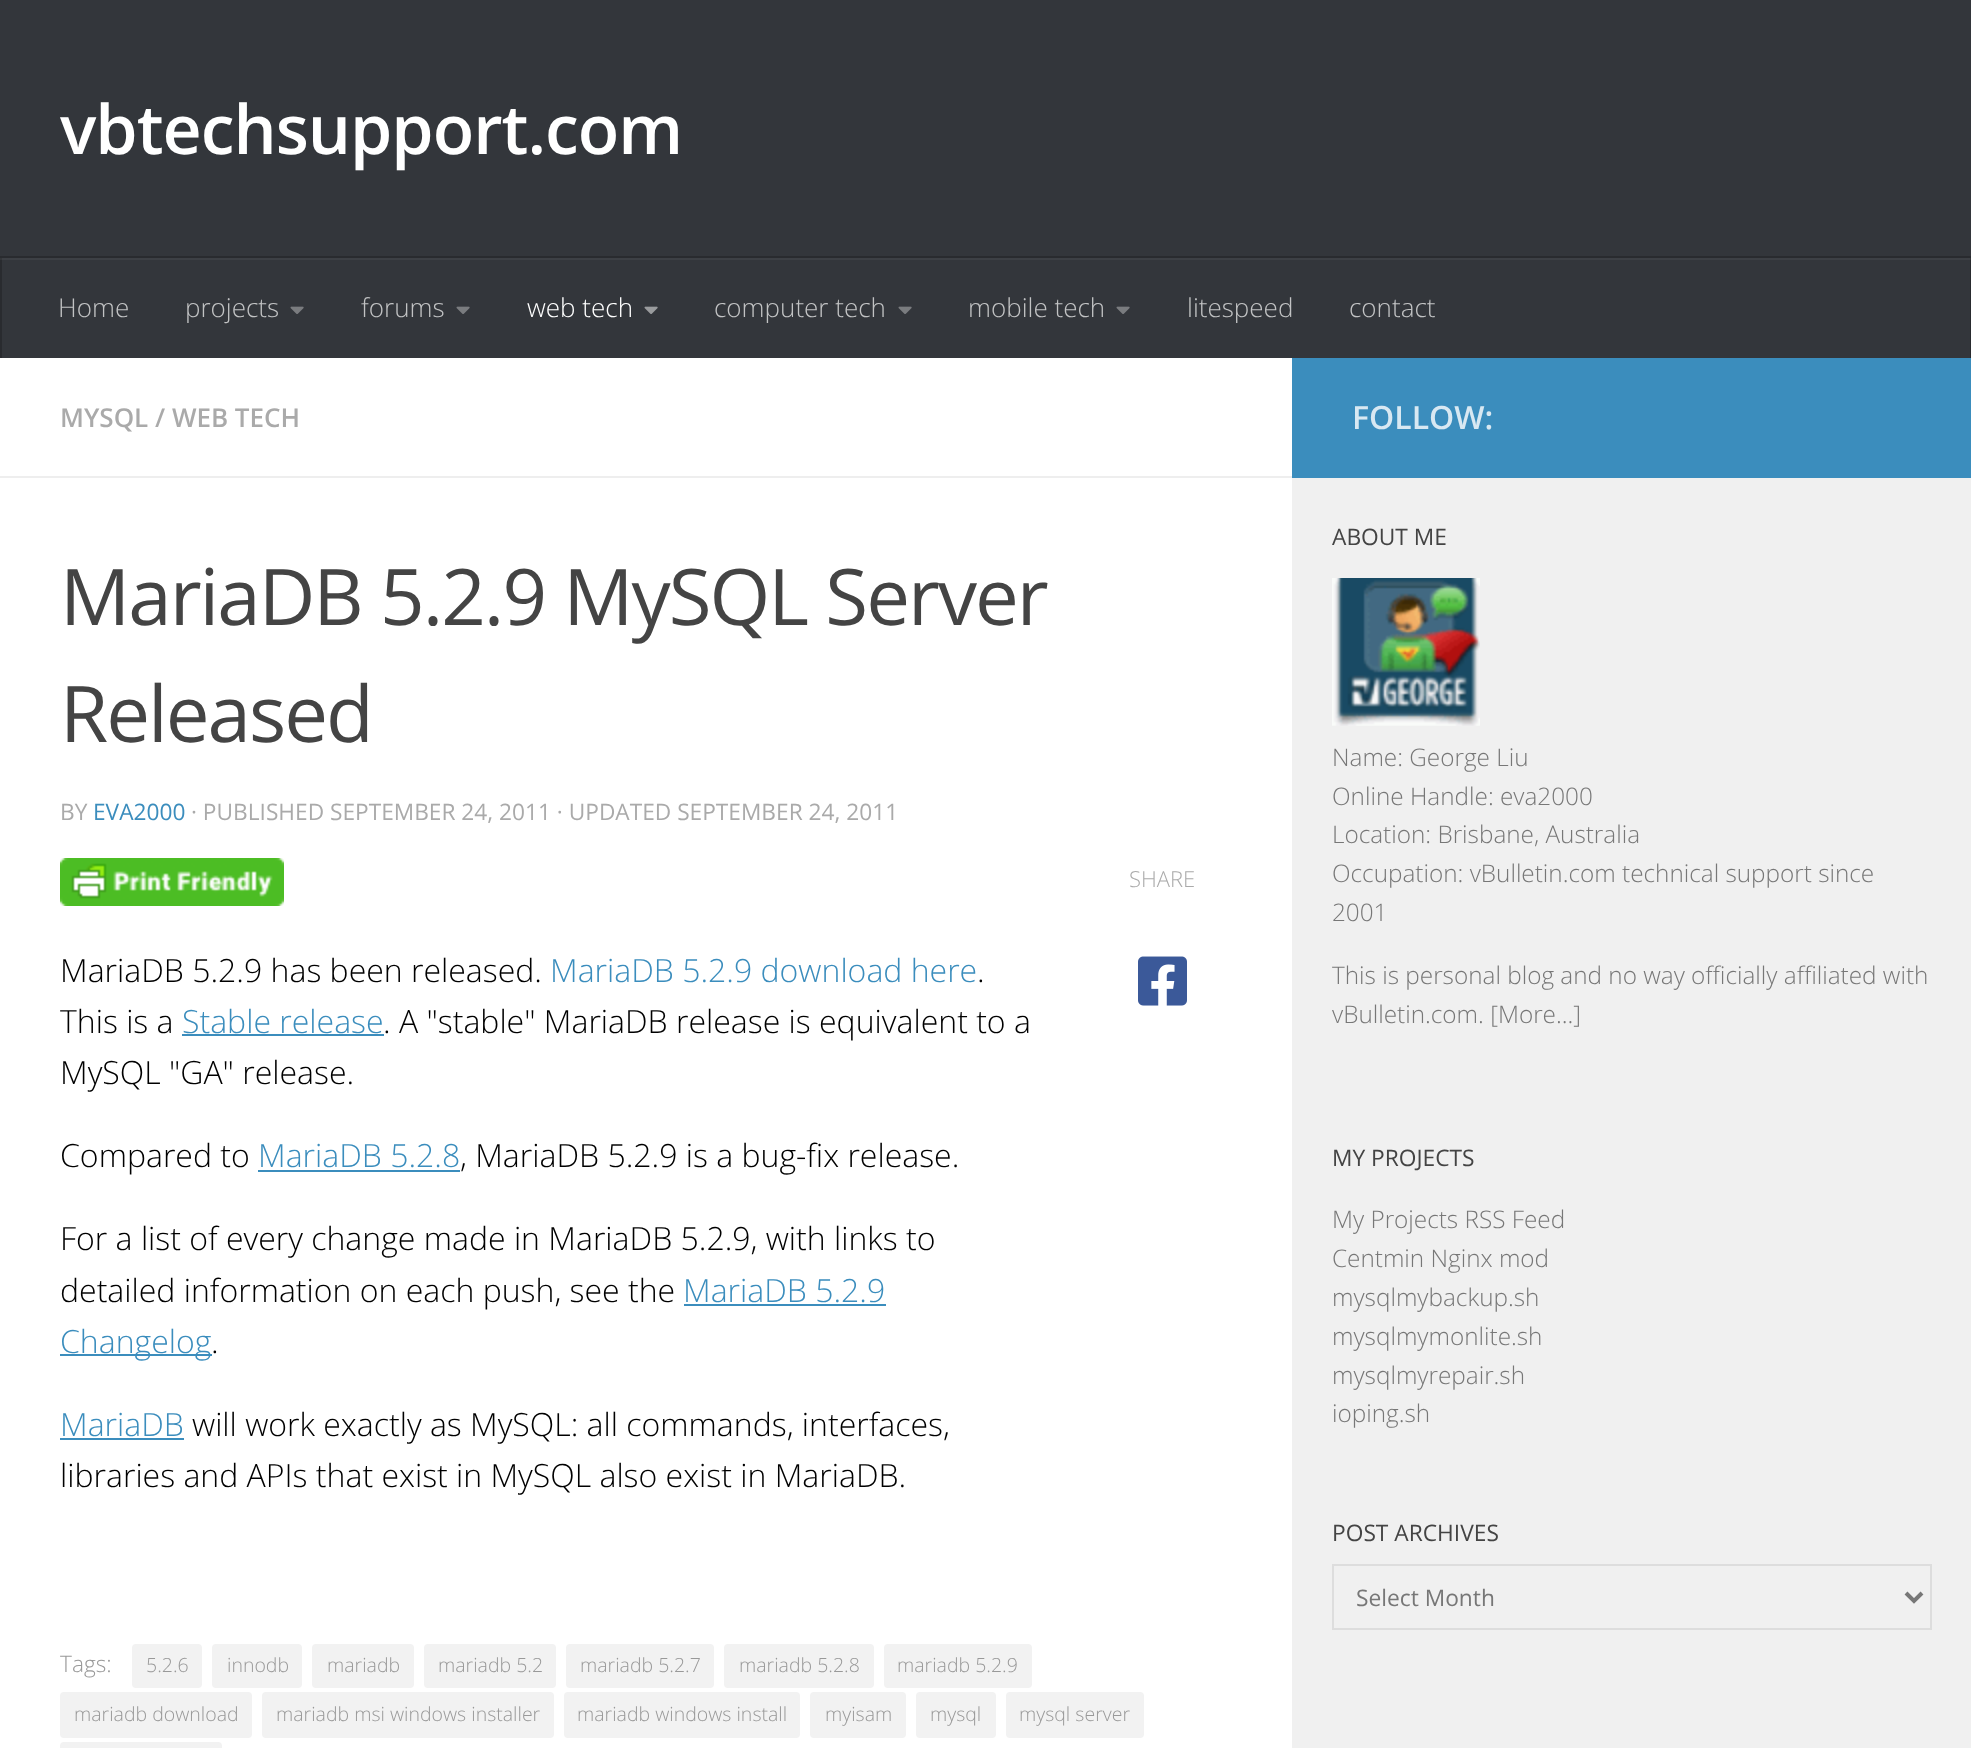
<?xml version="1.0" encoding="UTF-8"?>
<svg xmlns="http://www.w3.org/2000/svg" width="1971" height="1748">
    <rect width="100%" height="100%" fill="#33363B"/>
    <rect x="0" y="258" width="1971" height="2" fill="#3D4045"/>
    <text x="60" y="154" font-family="Open Sans" font-size="68" font-weight="600" letter-spacing="-1" fill="#FFFFFF">vbtechsupport.com</text>
    <rect x="0" y="256" width="1971" height="2" fill="#292B2F"/>
    <rect x="1970" y="258" width="1" height="100" fill="#292B2F"/>
    <rect x="1970" y="258" width="1" height="2" fill="#343639"/>
    <rect x="0" y="258" width="2" height="100" fill="#292B2F"/>
    <rect x="0" y="258" width="2" height="2" fill="#343639"/>
    <text x="58" y="317" font-family="Open Sans" font-size="26" font-weight="300" fill="#C2C3C4">Home</text>
    <text x="185" y="317" font-family="Open Sans" font-size="26" font-weight="300" fill="#C2C3C4">projects</text>
    <image x="290" y="306" width="14" height="8" href="img_01.png"/>
    <text x="361" y="317" font-family="Open Sans" font-size="26" font-weight="300" fill="#C2C3C4">forums</text>
    <image x="456" y="306" width="14" height="8" href="img_01.png"/>
    <text x="527" y="317" font-family="Open Sans" font-size="26" font-weight="300" fill="#FFFFFF">web tech</text>
    <image x="644" y="306" width="14" height="8" href="img_02.png"/>
    <text x="714" y="317" font-family="Open Sans" font-size="26" font-weight="300" fill="#C2C3C4">computer tech</text>
    <image x="898" y="306" width="14" height="8" href="img_01.png"/>
    <text x="968" y="317" font-family="Open Sans" font-size="26" font-weight="300" fill="#C2C3C4">mobile tech</text>
    <image x="1116" y="306" width="14" height="8" href="img_01.png"/>
    <text x="1187" y="317" font-family="Open Sans" font-size="26" font-weight="300" fill="#C2C3C4">litespeed</text>
    <text x="1349" y="317" font-family="Open Sans" font-size="26" font-weight="300" fill="#C2C3C4">contact</text>
    <rect x="0" y="358" width="1292" height="1390" fill="#FFFFFF"/>
    <rect x="0" y="476" width="1292" height="2" fill="#EEEEEE"/>
    <text x="60" y="427" font-family="Open Sans" font-size="26" font-weight="600" fill="#AAAAAA">MYSQL / WEB TECH</text>
    <text font-family="Open Sans" font-size="78.1" letter-spacing="-2" fill="#444444">
        <tspan x="60" y="625">MariaDB 5.2.9 MySQL Server</tspan>
        <tspan x="60" y="742">Released</tspan>
    </text>
    <text x="60" y="820" font-family="Open Sans" font-size="22.7" fill="#AAAAAA">BY</text>
    <text x="93" y="820" font-family="Open Sans" font-size="22.7" fill="#3B8DBD">EVA2000</text>
    <text x="191" y="820" font-family="Open Sans" font-size="22.7" fill="#AAAAAA">· PUBLISHED SEPTEMBER 24, 2011 · UPDATED SEPTEMBER 24, 2011</text>
    <text x="1129" y="887" font-family="Open Sans" font-size="22" font-weight="300" fill="#AAAAAA">SHARE</text>
    <image x="1138" y="956" width="49" height="50" href="img_03.png"/>
    <image x="60" y="858" width="224" height="48" href="img_04.png"/>
    <text x="60" y="982" font-family="Open Sans" font-size="32" font-weight="300" fill="#000000">MariaDB 5.2.9 has been released.</text>
    <text x="550" y="982" font-family="Open Sans" font-size="32" font-weight="300" fill="#3B8DBD">MariaDB 5.2.9 download here</text>
    <text x="977" y="982" font-family="Open Sans" font-size="32" font-weight="300" fill="#000000">.</text>
    <text x="60" y="1033" font-family="Open Sans" font-size="32" font-weight="300" fill="#000000">This is a</text>
    <text x="182" y="1033" font-family="Open Sans" font-size="32" font-weight="300" fill="#3B8DBD">Stable release</text>
    <rect x="182" y="1034" width="202" height="2" fill="#3B8DBD"/>
    <text x="383" y="1033" font-family="Open Sans" font-size="32" font-weight="300" fill="#000000">. A "stable" MariaDB release is equivalent to a</text>
    <text x="60" y="1084" font-family="Open Sans" font-size="32" font-weight="300" fill="#000000">MySQL "GA" release.</text>
    <text x="60" y="1167" font-family="Open Sans" font-size="32" font-weight="300" fill="#000000">Compared to</text>
    <text x="258" y="1167" font-family="Open Sans" font-size="32" font-weight="300" fill="#3B8DBD">MariaDB 5.2.8</text>
    <rect x="258" y="1170" width="202" height="2" fill="#3B8DBD"/>
    <text x="460" y="1167" font-family="Open Sans" font-size="32" font-weight="300" fill="#000000">, MariaDB 5.2.9 is a bug-fix release.</text>
    <text font-family="Open Sans" font-size="32" font-weight="300" fill="#000000">
        <tspan x="60" y="1250">For a list of every change made in MariaDB 5.2.9, with links to</tspan>
        <tspan x="60" y="1302">detailed information on each push, see the</tspan>
    </text>
    <text x="683" y="1302" font-family="Open Sans" font-size="32" font-weight="300" fill="#3B8DBD">MariaDB 5.2.9</text>
    <rect x="684" y="1304" width="202" height="2" fill="#3B8DBD"/>
    <rect x="60" y="1354" width="152" height="2" fill="#3B8DBD"/>
    <text x="60" y="1353" font-family="Open Sans" font-size="32" font-weight="300" fill="#3B8DBD">Changelog</text>
    <text x="211" y="1353" font-family="Open Sans" font-size="32" font-weight="300" fill="#000000">.</text>
    <text x="60" y="1436" font-family="Open Sans" font-size="32" font-weight="300" fill="#3B8DBD">MariaDB</text>
    <rect x="60" y="1438" width="124" height="2" fill="#3B8DBD"/>
    <text x="192" y="1436" font-family="Open Sans" font-size="32" font-weight="300" fill="#000000">will work exactly as MySQL: all commands, interfaces,</text>
    <text x="60" y="1487" font-family="Open Sans" font-size="32" font-weight="300" fill="#000000">libraries and APIs that exist in MySQL also exist in MariaDB.</text>
    <text x="60" y="1672" font-family="Open Sans" font-size="22.7" font-weight="300" fill="#999999">Tags:</text>
    <rect x="132" y="1644" width="70" height="44" rx="4" fill="#F2F2F2"/>
    <text x="146" y="1672" font-family="Open Sans" font-size="19.5" font-weight="300" fill="#999999">5.2.6</text>
    <rect x="212" y="1644" width="90" height="44" rx="4" fill="#F2F2F2"/>
    <text x="227" y="1672" font-family="Open Sans" font-size="19.5" font-weight="300" fill="#999999">innodb</text>
    <rect x="312" y="1644" width="102" height="44" rx="4" fill="#F2F2F2"/>
    <text x="327" y="1672" font-family="Open Sans" font-size="19.5" font-weight="300" fill="#999999">mariadb</text>
    <rect x="424" y="1644" width="132" height="44" rx="4" fill="#F2F2F2"/>
    <text x="438" y="1672" font-family="Open Sans" font-size="19.5" font-weight="300" fill="#999999">mariadb 5.2</text>
    <rect x="566" y="1644" width="148" height="44" rx="4" fill="#F2F2F2"/>
    <text x="580" y="1672" font-family="Open Sans" font-size="19.5" font-weight="300" fill="#999999">mariadb 5.2.7</text>
    <rect x="724" y="1644" width="150" height="44" rx="4" fill="#F2F2F2"/>
    <text x="739" y="1672" font-family="Open Sans" font-size="19.5" font-weight="300" fill="#999999">mariadb 5.2.8</text>
    <rect x="884" y="1644" width="148" height="44" rx="4" fill="#F2F2F2"/>
    <text x="897" y="1672" font-family="Open Sans" font-size="19.5" font-weight="300" fill="#999999">mariadb 5.2.9</text>
    <rect x="60" y="1692" width="192" height="46" rx="4" fill="#F2F2F2"/>
    <text x="74" y="1721" font-family="Open Sans" font-size="19.5" font-weight="300" fill="#999999">mariadb download</text>
    <rect x="262" y="1692" width="292" height="46" rx="4" fill="#F2F2F2"/>
    <text x="276" y="1721" font-family="Open Sans" font-size="19.5" font-weight="300" fill="#999999">mariadb msi windows installer</text>
    <rect x="564" y="1692" width="236" height="46" rx="4" fill="#F2F2F2"/>
    <text x="577" y="1721" font-family="Open Sans" font-size="19.5" font-weight="300" fill="#999999">mariadb windows install</text>
    <rect x="810" y="1692" width="96" height="46" rx="4" fill="#F2F2F2"/>
    <text x="825" y="1721" font-family="Open Sans" font-size="19.5" font-weight="300" fill="#999999">myisam</text>
    <rect x="916" y="1692" width="80" height="46" rx="4" fill="#F2F2F2"/>
    <text x="930" y="1721" font-family="Open Sans" font-size="19.5" font-weight="300" fill="#999999">mysql</text>
    <rect x="1006" y="1692" width="138" height="46" rx="4" fill="#F2F2F2"/>
    <text x="1019" y="1721" font-family="Open Sans" font-size="19.5" font-weight="300" fill="#999999">mysql server</text>
    <rect x="60" y="1742" width="162" height="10" rx="4" fill="#F2F2F2"/>
    <rect x="1292" y="358" width="679" height="120" fill="#3B8DBD"/>
    <text x="1352" y="429" font-family="Open Sans" font-size="32" font-weight="600" fill="#D8E8F2">FOLLOW:</text>
    <rect x="1292" y="478" width="679" height="1270" fill="#F0F0F0"/>
    <text x="1332" y="545" font-family="Open Sans" font-size="22.75" fill="#444444">ABOUT ME</text>
    <image x="1332" y="578" width="148" height="148" href="img_05.png"/>
    <text font-family="Open Sans" font-size="24.3" font-weight="300" fill="#777777">
        <tspan x="1332" y="766">Name: George Liu</tspan>
        <tspan x="1332" y="805">Online Handle: eva2000</tspan>
        <tspan x="1332" y="843">Location: Brisbane, Australia</tspan>
        <tspan x="1332" y="882">Occupation: vBulletin.com technical support since</tspan>
        <tspan x="1332" y="921">2001</tspan>
    </text>
    <text font-family="Open Sans" font-size="24.3" font-weight="300" fill="#777777">
        <tspan x="1332" y="984">This is personal blog and no way officially affiliated with</tspan>
        <tspan x="1332" y="1023">vBulletin.com. [More...]</tspan>
    </text>
    <text x="1332" y="1166" font-family="Open Sans" font-size="22.75" fill="#444444">MY PROJECTS</text>
    <text font-family="Open Sans" font-size="24.3" font-weight="300" fill="#777777">
        <tspan x="1332" y="1228">My Projects RSS Feed</tspan>
        <tspan x="1332" y="1267">Centmin Nginx mod</tspan>
        <tspan x="1332" y="1306">mysqlmybackup.sh</tspan>
        <tspan x="1332" y="1345">mysqlmymonlite.sh</tspan>
        <tspan x="1332" y="1384">mysqlmyrepair.sh</tspan>
        <tspan x="1332" y="1422">ioping.sh</tspan>
    </text>
    <text x="1332" y="1541" font-family="Open Sans" font-size="22.75" fill="#444444">POST ARCHIVES</text>
    <rect x="1333" y="1565" width="598" height="64" fill="none" stroke="#DDDDDD" stroke-width="2"/>
    <path d="M 1906 1593 L 1914 1601 L 1922 1593" fill="none" stroke="#777777" stroke-width="4"/>
    <text x="1356" y="1606" font-family="Open Sans" font-size="22.75" fill="#777777">Select Month</text>
</svg>
